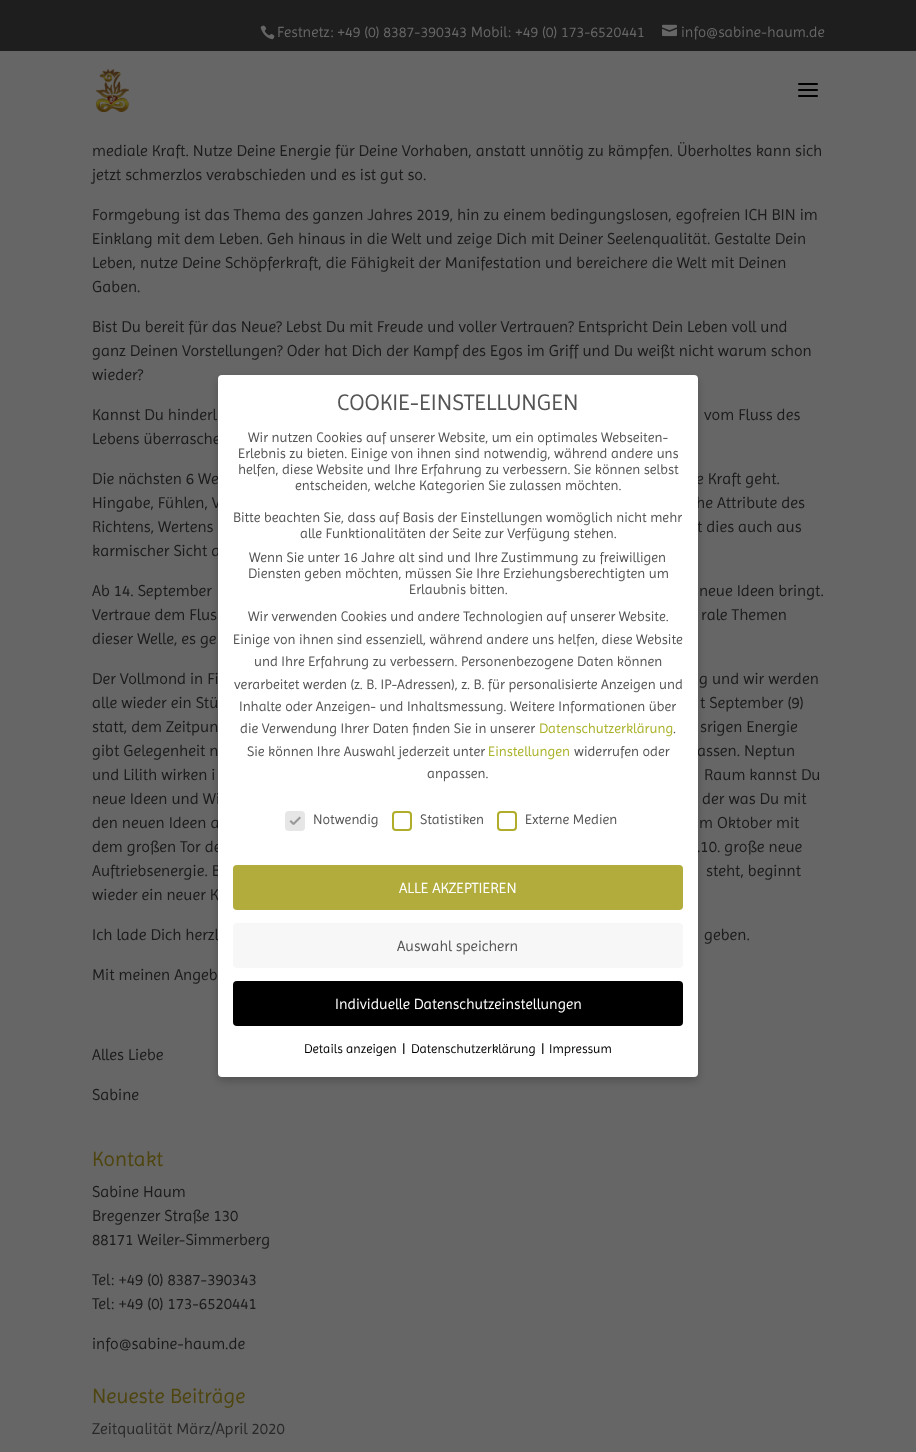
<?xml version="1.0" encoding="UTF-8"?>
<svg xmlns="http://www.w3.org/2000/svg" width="916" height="1452">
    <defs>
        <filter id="blur1" x="-50%" y="-200%" width="200%" height="500%"><feGaussianBlur stdDeviation="4"/></filter>
    </defs>
    <rect width="100%" height="100%" fill="#666666"/>
    <rect x="0" y="0" width="916" height="51" fill="#000000" fill-opacity="0.7"/>
    <image x="260" y="25" width="15" height="15" href="img_01.png"/>
    <text x="277" y="37" font-family="Imprima" font-size="15" fill="#666666">Festnetz: +49 (0) 8387-390343 Mobil: +49 (0) 173-6520441</text>
    <image x="662" y="24" width="15" height="13" href="img_02.png"/>
    <text x="681" y="37" font-family="Imprima" font-size="15" fill="#666666">info@sabine-haum.de</text>
    <image x="96" y="69" width="33" height="43" href="img_03.png"/>
    <image x="798" y="83" width="20" height="14" href="img_04.png"/>
    <text font-family="Imprima" font-size="16" fill="#1B1B1B">
        <tspan x="92" y="156">mediale Kraft. Nutze Deine Energie für Deine Vorhaben, anstatt unnötig zu kämpfen. Überholtes kann sich</tspan>
        <tspan x="92" y="180">jetzt schmerzlos verabschieden und es ist gut so.</tspan>
    </text>
    <text font-family="Imprima" font-size="16" fill="#1B1B1B">
        <tspan x="92" y="220">Formgebung ist das Thema des ganzen Jahres 2019, hin zu einem bedingungslosen, egofreien ICH BIN im</tspan>
        <tspan x="92" y="244">Einklang mit dem Leben. Geh hinaus in die Welt und zeige Dich mit Deiner Seelenqualität. Gestalte Dein</tspan>
        <tspan x="92" y="268">Leben, nutze Deine Schöpferkraft, die Fähigkeit der Manifestation und bereichere die Welt mit Deinen</tspan>
        <tspan x="92" y="292">Gaben.</tspan>
    </text>
    <text font-family="Imprima" font-size="16" fill="#1B1B1B">
        <tspan x="92" y="332">Bist Du bereit für das Neue? Lebst Du mit Freude und voller Vertrauen? Entspricht Dein Leben voll und</tspan>
        <tspan x="92" y="356">ganz Deinen Vorstellungen? Oder hat Dich der Kampf des Egos im Griff und Du weißt nicht warum schon</tspan>
        <tspan x="92" y="380">wieder?</tspan>
    </text>
    <text x="92" y="420" font-family="Imprima" font-size="16" fill="#1B1B1B">Kannst Du hinderl</text>
    <text x="704" y="420" font-family="Imprima" font-size="16" fill="#1B1B1B">vom Fluss des</text>
    <text x="92" y="444" font-family="Imprima" font-size="16" fill="#1B1B1B">Lebens überrasche</text>
    <text x="92" y="484" font-family="Imprima" font-size="16" fill="#1B1B1B">Die nächsten 6 We</text>
    <text x="696" y="484" font-family="Imprima" font-size="16" fill="#1B1B1B">e Kraft geht.</text>
    <text x="92" y="508" font-family="Imprima" font-size="16" fill="#1B1B1B">Hingabe, Fühlen, V</text>
    <text x="696" y="508" font-family="Imprima" font-size="16" fill="#1B1B1B">he Attribute des</text>
    <text x="92" y="532" font-family="Imprima" font-size="16" fill="#1B1B1B">Richtens, Wertens</text>
    <text x="697" y="532" font-family="Imprima" font-size="16" fill="#1B1B1B">t dies auch aus</text>
    <text x="92" y="556" font-family="Imprima" font-size="16" fill="#1B1B1B">karmischer Sicht a</text>
    <text x="92" y="596" font-family="Imprima" font-size="16" fill="#1B1B1B">Ab 14. September</text>
    <text x="699" y="596" font-family="Imprima" font-size="16" fill="#1B1B1B">neue Ideen bringt.</text>
    <text x="92" y="620" font-family="Imprima" font-size="16" fill="#1B1B1B">Vertraue dem Flus</text>
    <text x="701" y="620" font-family="Imprima" font-size="16" fill="#1B1B1B">rale Themen</text>
    <text x="92" y="644" font-family="Imprima" font-size="16" fill="#1B1B1B">dieser Welle, es ge</text>
    <text x="92" y="684" font-family="Imprima" font-size="16" fill="#1B1B1B">Der Vollmond in Fi</text>
    <text x="699" y="684" font-family="Imprima" font-size="16" fill="#1B1B1B">g und wir werden</text>
    <text x="92" y="708" font-family="Imprima" font-size="16" fill="#1B1B1B">alle wieder ein Stü</text>
    <text x="700" y="708" font-family="Imprima" font-size="16" fill="#1B1B1B">t September (9)</text>
    <text x="92" y="732" font-family="Imprima" font-size="16" fill="#1B1B1B">statt, dem Zeitpun</text>
    <text x="700" y="732" font-family="Imprima" font-size="16" fill="#1B1B1B">srigen Energie</text>
    <text x="92" y="756" font-family="Imprima" font-size="16" fill="#1B1B1B">gibt Gelegenheit n</text>
    <text x="697" y="756" font-family="Imprima" font-size="16" fill="#1B1B1B">assen. Neptun</text>
    <text x="92" y="780" font-family="Imprima" font-size="16" fill="#1B1B1B">und Lilith wirken i</text>
    <text x="704" y="780" font-family="Imprima" font-size="16" fill="#1B1B1B">Raum kannst Du</text>
    <text x="92" y="804" font-family="Imprima" font-size="16" fill="#1B1B1B">neue Ideen und Wi</text>
    <text x="702" y="804" font-family="Imprima" font-size="16" fill="#1B1B1B">der was Du mit</text>
    <text x="92" y="828" font-family="Imprima" font-size="16" fill="#1B1B1B">den neuen Ideen a</text>
    <text x="699" y="828" font-family="Imprima" font-size="16" fill="#1B1B1B">m Oktober mit</text>
    <text x="92" y="852" font-family="Imprima" font-size="16" fill="#1B1B1B">dem großen Tor de</text>
    <text x="697" y="852" font-family="Imprima" font-size="16" fill="#1B1B1B">.10. große neue</text>
    <text x="92" y="876" font-family="Imprima" font-size="16" fill="#1B1B1B">Auftriebsenergie. B</text>
    <text x="706" y="876" font-family="Imprima" font-size="16" fill="#1B1B1B">steht, beginnt</text>
    <text x="92" y="900" font-family="Imprima" font-size="16" fill="#1B1B1B">wieder ein neuer K</text>
    <text x="92" y="940" font-family="Imprima" font-size="16" fill="#1B1B1B">Ich lade Dich herzl</text>
    <text x="704" y="940" font-family="Imprima" font-size="16" fill="#1B1B1B">geben.</text>
    <text x="92" y="980" font-family="Imprima" font-size="16" fill="#1B1B1B">Mit meinen Angeb</text>
    <text x="92" y="1060" font-family="Imprima" font-size="16" fill="#1B1B1B">Alles Liebe</text>
    <text x="92" y="1100" font-family="Imprima" font-size="16" fill="#1B1B1B">Sabine</text>
    <text x="92" y="1166" font-family="Imprima" font-size="21" fill="#4E450F">Kontakt</text>
    <text font-family="Imprima" font-size="16" fill="#1B1B1B">
        <tspan x="92" y="1197">Sabine Haum</tspan>
        <tspan x="92" y="1221">Bregenzer Straße 130</tspan>
        <tspan x="92" y="1245">88171 Weiler-Simmerberg</tspan>
    </text>
    <text font-family="Imprima" font-size="16" fill="#1B1B1B">
        <tspan x="92" y="1285">Tel: +49 (0) 8387-390343</tspan>
        <tspan x="92" y="1309">Tel: +49 (0) 173-6520441</tspan>
    </text>
    <text x="92" y="1349" font-family="Imprima" font-size="16" fill="#1B1B1B">info@sabine-haum.de</text>
    <text x="92" y="1403" font-family="Imprima" font-size="21" fill="#4E450F">Neueste Beiträge</text>
    <text x="92" y="1434" font-family="Imprima" font-size="16" fill="#292929">Zeitqualität März/April 2020</text>
    <rect x="218" y="379" width="480" height="702" rx="4" fill="#000000" fill-opacity="0.2" filter="url(#blur1)"/>
    <rect x="218" y="375" width="480" height="702" rx="4" fill="#FFFFFF"/>
    <text x="337" y="410" font-family="Imprima" font-size="22.75" fill="#555555">COOKIE-EINSTELLUNGEN</text>
    <text x="248" y="442" font-family="Imprima" font-size="14" fill="#555555">Wir nutzen Cookies auf unserer Website, um ein optimales Webseiten-</text>
    <text font-family="Imprima" font-size="14" fill="#555555">
        <tspan x="238" y="458">Erlebnis zu bieten. Einige von ihnen sind notwendig, während andere uns</tspan>
        <tspan x="238" y="474">helfen, diese Website und Ihre Erfahrung zu verbessern. Sie können selbst</tspan>
    </text>
    <text x="295" y="490" font-family="Imprima" font-size="14" fill="#555555">entscheiden, welche Kategorien Sie zulassen möchten.</text>
    <text x="233" y="522" font-family="Imprima" font-size="14" fill="#555555">Bitte beachten Sie, dass auf Basis der Einstellungen womöglich nicht mehr</text>
    <text x="300" y="538" font-family="Imprima" font-size="14" fill="#555555">alle Funktionalitäten der Seite zur Verfügung stehen.</text>
    <text x="249" y="562" font-family="Imprima" font-size="14" fill="#555555">Wenn Sie unter 16 Jahre alt sind und Ihre Zustimmung zu freiwilligen</text>
    <text x="248" y="578" font-family="Imprima" font-size="14" fill="#555555">Diensten geben möchten, müssen Sie Ihre Erziehungsberechtigten um</text>
    <text x="409" y="594" font-family="Imprima" font-size="14" fill="#555555">Erlaubnis bitten.</text>
    <text x="248" y="621" font-family="Imprima" font-size="14" fill="#555555">Wir verwenden Cookies und andere Technologien auf unserer Website.</text>
    <text x="233" y="644" font-family="Imprima" font-size="14" fill="#555555">Einige von ihnen sind essenziell, während andere uns helfen, diese Website</text>
    <text x="254" y="666" font-family="Imprima" font-size="14" fill="#555555">und Ihre Erfahrung zu verbessern. Personenbezogene Daten können</text>
    <text x="234" y="689" font-family="Imprima" font-size="14" fill="#555555">verarbeitet werden (z. B. IP-Adressen), z. B. für personalisierte Anzeigen und</text>
    <text x="239" y="711" font-family="Imprima" font-size="14" fill="#555555">Inhalte oder Anzeigen- und Inhaltsmessung. Weitere Informationen über</text>
    <text x="240" y="733" font-family="Imprima" font-size="14" fill="#555555">die Verwendung Ihrer Daten finden Sie in unserer</text>
    <text x="539" y="733" font-family="Imprima" font-size="14" fill="#ABB22A">Datenschutzerklärung</text>
    <text x="673" y="733" font-family="Imprima" font-size="14" fill="#555555">.</text>
    <text x="247" y="756" font-family="Imprima" font-size="14" fill="#555555">Sie können Ihre Auswahl jederzeit unter</text>
    <text x="488" y="756" font-family="Imprima" font-size="14" fill="#ABB22A">Einstellungen</text>
    <text x="574" y="756" font-family="Imprima" font-size="14" fill="#555555">widerrufen oder</text>
    <text x="427" y="778" font-family="Imprima" font-size="14" fill="#555555">anpassen.</text>
    <rect x="286" y="812" width="18" height="18" rx="3" fill="#E6E6E6" stroke="#E6E6E6" stroke-width="2"/>
    <path d="M 299.5 816.5 L 301 818 L 294 825 L 292.5 823.5 Z" fill="#999999"/>
    <path d="M 291 820 L 294.5 823.5 L 293 825 L 289.5 821.5 Z" fill="#999999"/>
    <text x="313" y="824" font-family="Imprima" font-size="14" fill="#555555">Notwendig</text>
    <rect x="393" y="812" width="18" height="18" rx="3" fill="none" stroke="#AFAD2A" stroke-width="2"/>
    <text x="420" y="824" font-family="Imprima" font-size="14" fill="#555555">Statistiken</text>
    <rect x="498" y="812" width="18" height="18" rx="3" fill="none" stroke="#AFAD2A" stroke-width="2"/>
    <text x="525" y="824" font-family="Imprima" font-size="14" fill="#555555">Externe Medien</text>
    <rect x="233" y="865" width="450" height="45" rx="4" fill="#B2AC3C"/>
    <text x="399" y="893" font-family="Imprima" font-size="15" fill="#FFFFFF">ALLE AKZEPTIEREN</text>
    <rect x="233" y="923" width="450" height="45" rx="4" fill="#F7F7F7"/>
    <text x="397" y="951" font-family="Imprima" font-size="15" fill="#555555">Auswahl speichern</text>
    <rect x="233" y="981" width="450" height="45" rx="4" fill="#000000"/>
    <text x="335" y="1009" font-family="Imprima" font-size="15" fill="#FFFFFF">Individuelle Datenschutzeinstellungen</text>
    <text x="304" y="1053" font-family="Imprima" font-size="13" fill="#000000">Details anzeigen</text>
    <text x="402" y="1053" font-family="Imprima" font-size="13" fill="#000000">|</text>
    <text x="411" y="1053" font-family="Imprima" font-size="13" fill="#000000">Datenschutzerklärung</text>
    <text x="541" y="1053" font-family="Imprima" font-size="13" fill="#000000">|</text>
    <text x="549" y="1053" font-family="Imprima" font-size="13" fill="#000000">Impressum</text>
</svg>
